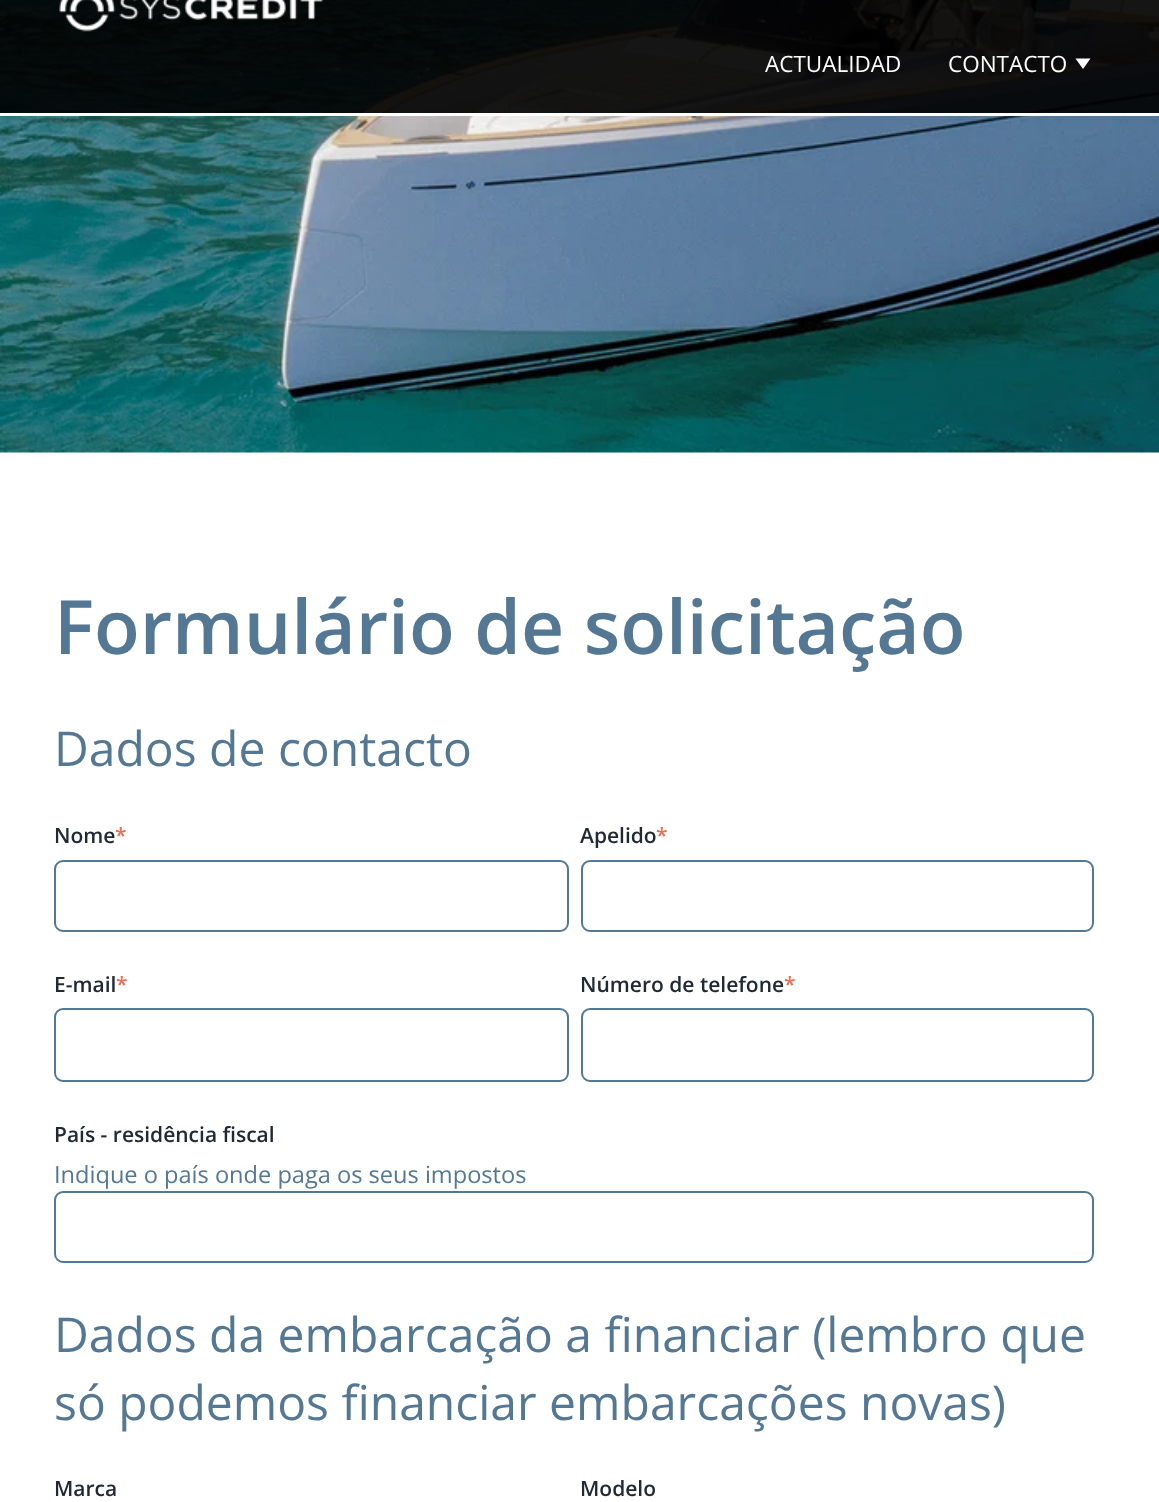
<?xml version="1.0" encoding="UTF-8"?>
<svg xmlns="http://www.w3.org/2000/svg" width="1159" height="1502">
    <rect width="100%" height="100%" fill="#FFFFFF"/>
    <image x="0" y="0" width="1159" height="453" href="img_02.png"/>
    <rect x="0" y="0" width="1159" height="113" fill="#000000" fill-opacity="0.91"/>
    <rect x="0" y="113" width="1159" height="3" fill="#FFFFFF"/>
    <image x="59" y="0" width="265" height="32" href="img_01.png"/>
    <text x="765" y="72" font-family="Open Sans" font-size="22.5" fill="#FFFFFF">ACTUALIDAD</text>
    <text x="948" y="72" font-family="Open Sans" font-size="22.5" fill="#FFFFFF">CONTACTO</text>
    <path d="M 1075.5 58.5 H 1090.5 L 1083 69 Z" fill="#FFFFFF"/>
    <text x="54" y="654" font-family="Open Sans" font-size="75" font-weight="600" fill="#547794">Formulário de solicitação</text>
    <text x="54" y="766" font-family="Open Sans" font-size="48" fill="#547794">Dados de contacto</text>
    <text x="54" y="843" font-family="Open Sans" font-size="21" font-weight="600" fill="#212934">Nome</text>
    <text x="115" y="843" font-family="Open Sans" font-size="21" font-weight="600" fill="#EF6B51">*</text>
    <rect x="55" y="861" width="513" height="70" rx="8" fill="none" stroke="#547794" stroke-width="2"/>
    <text x="580" y="843" font-family="Open Sans" font-size="21" font-weight="600" fill="#212934">Apelido</text>
    <text x="656" y="843" font-family="Open Sans" font-size="21" font-weight="600" fill="#EF6B51">*</text>
    <rect x="582" y="861" width="511" height="70" rx="8" fill="none" stroke="#547794" stroke-width="2"/>
    <text x="54" y="992" font-family="Open Sans" font-size="21" font-weight="600" fill="#212934">E-mail</text>
    <text x="116" y="992" font-family="Open Sans" font-size="21" font-weight="600" fill="#EF6B51">*</text>
    <rect x="55" y="1009" width="513" height="72" rx="8" fill="none" stroke="#547794" stroke-width="2"/>
    <text x="580" y="992" font-family="Open Sans" font-size="21" font-weight="600" fill="#212934">Número de telefone</text>
    <text x="784" y="992" font-family="Open Sans" font-size="21" font-weight="600" fill="#EF6B51">*</text>
    <rect x="582" y="1009" width="511" height="72" rx="8" fill="none" stroke="#547794" stroke-width="2"/>
    <text x="54" y="1142" font-family="Open Sans" font-size="21" font-weight="600" fill="#212934">País - residência fiscal</text>
    <text x="54" y="1183" font-family="Open Sans" font-size="23.6" fill="#547794">Indique o país onde paga os seus impostos</text>
    <rect x="55" y="1192" width="1038" height="70" rx="8" fill="none" stroke="#547794" stroke-width="2"/>
    <text font-family="Open Sans" font-size="48" fill="#547794">
        <tspan x="54" y="1352">Dados da embarcação a financiar (lembro que</tspan>
        <tspan x="54" y="1420">só podemos financiar embarcações novas)</tspan>
    </text>
    <text x="54" y="1496" font-family="Open Sans" font-size="21" font-weight="600" fill="#212934">Marca</text>
    <text x="580" y="1496" font-family="Open Sans" font-size="21" font-weight="600" fill="#212934">Modelo</text>
</svg>
